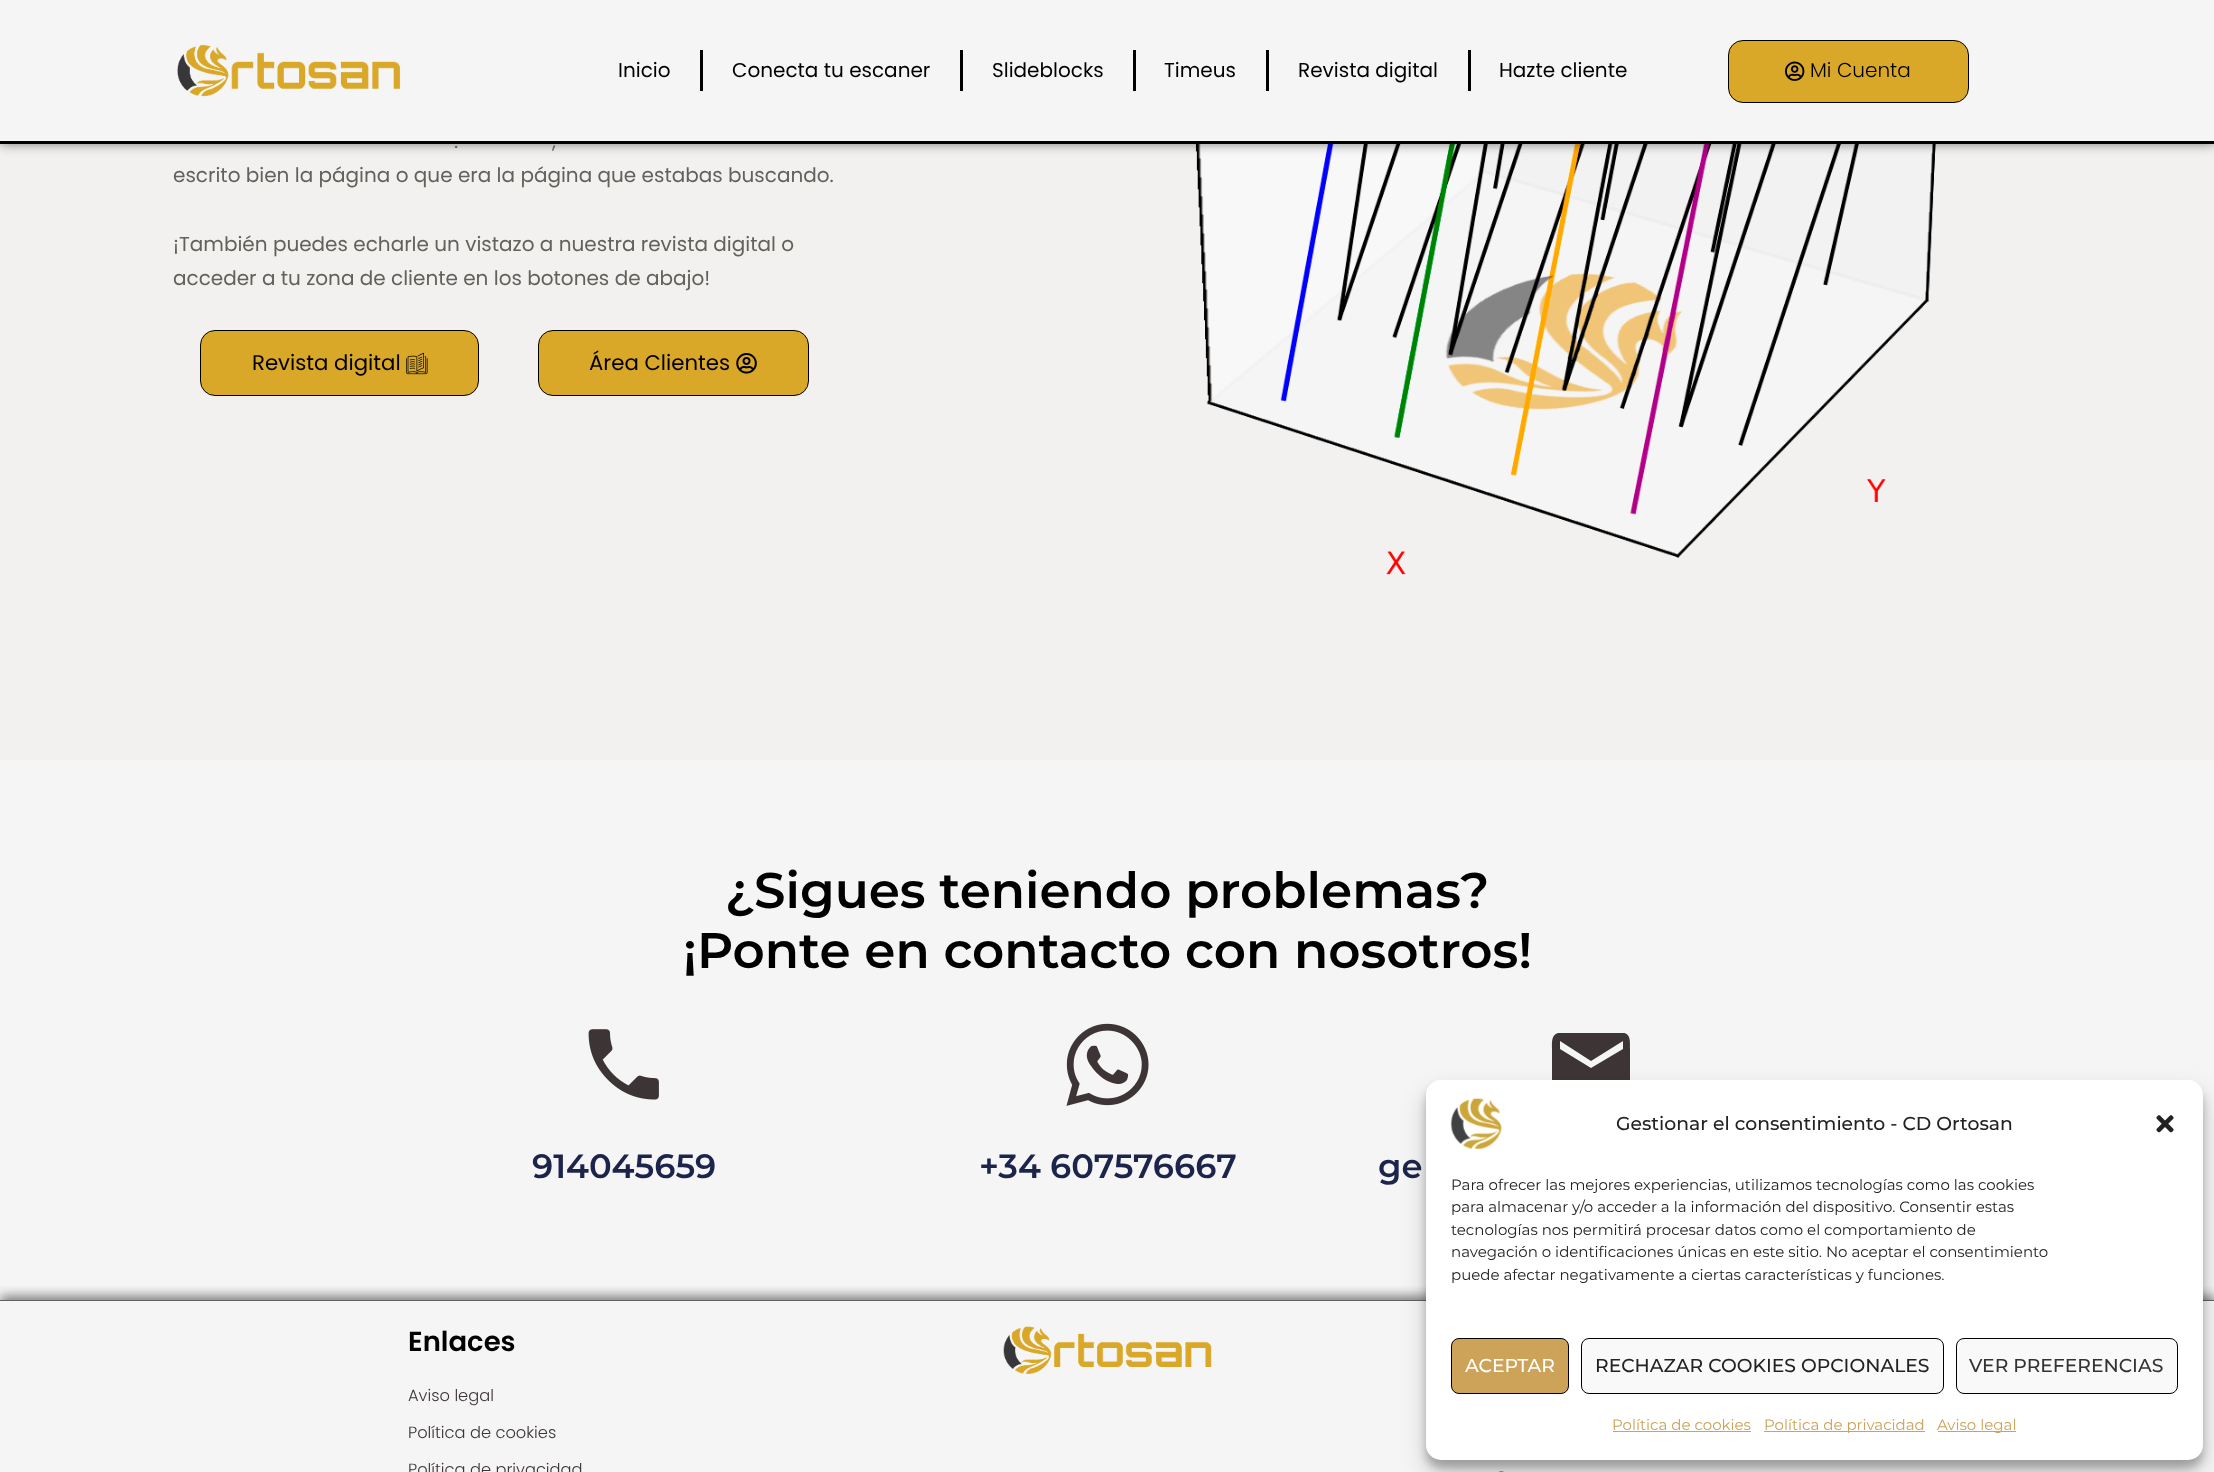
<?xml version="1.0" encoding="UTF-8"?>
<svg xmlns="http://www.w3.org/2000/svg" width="2214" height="1472">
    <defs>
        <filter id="blur1" x="-50%" y="-200%" width="200%" height="500%"><feGaussianBlur stdDeviation="6"/></filter>
        <clipPath id="clip1"><rect x="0" y="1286" width="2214" height="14"/></clipPath>
        <filter id="blur2" x="-50%" y="-200%" width="200%" height="500%"><feGaussianBlur stdDeviation="4"/></filter>
        <filter id="blur3" x="-50%" y="-200%" width="200%" height="500%"><feGaussianBlur stdDeviation="12.5"/></filter>
    </defs>
    <rect width="100%" height="100%" fill="#F5F5F5"/>
    <rect x="0" y="144" width="2214" height="616" fill="#F3F1F0"/>
    <image x="1195" y="144" width="741" height="431" href="img_05.png"/>
    <rect x="0" y="0" width="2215" height="144" fill="#000000" fill-opacity="0.5" filter="url(#blur1)"/>
    <rect x="0" y="0" width="2214" height="141" fill="#F5F5F5"/>
    <rect x="0" y="141" width="2214" height="3" fill="#000000"/>
    <image x="177" y="44" width="224" height="53" href="img_01.png"/>
    <text x="618" y="77" font-family="Poppins" font-size="20" fill="#000000">Inicio</text>
    <rect x="700" y="50" width="3" height="41" fill="#000000"/>
    <text x="732" y="77" font-family="Poppins" font-size="20" fill="#000000">Conecta tu escaner</text>
    <rect x="960" y="50" width="3" height="41" fill="#000000"/>
    <text x="992" y="77" font-family="Poppins" font-size="20" fill="#000000">Slideblocks</text>
    <rect x="1133" y="50" width="3" height="41" fill="#000000"/>
    <text x="1164" y="77" font-family="Poppins" font-size="20" fill="#000000">Timeus</text>
    <rect x="1266" y="50" width="3" height="41" fill="#000000"/>
    <text x="1298" y="77" font-family="Poppins" font-size="20" fill="#000000">Revista digital</text>
    <rect x="1468" y="50" width="3" height="41" fill="#000000"/>
    <text x="1499" y="77" font-family="Poppins" font-size="20" fill="#000000">Hazte cliente</text>
    <rect x="1728.5" y="40.5" width="240" height="62" rx="14.5" fill="#D9A829" stroke="#000000"/>
    <image x="1785" y="61" width="20" height="20" href="img_02.png"/>
    <text x="1810" y="77" font-family="Poppins" font-size="20" font-weight="300" fill="#000000">Mi Cuenta</text>
    <text x="454" y="148" font-family="Poppins" font-size="20" fill="#62615C">.</text>
    <text x="552" y="148" font-family="Poppins" font-size="20" fill="#62615C">,</text>
    <text x="173" y="182" font-family="Poppins" font-size="20" fill="#62615C">escrito bien la página o que era la página que estabas buscando.</text>
    <text font-family="Poppins" font-size="20" fill="#62615C">
        <tspan x="173" y="251">¡También puedes echarle un vistazo a nuestra revista digital o</tspan>
        <tspan x="173" y="285">acceder a tu zona de cliente en los botones de abajo!</tspan>
    </text>
    <rect x="200.5" y="330.5" width="278" height="65" rx="14.5" fill="#D9A829" stroke="#000000"/>
    <text x="252" y="370" font-family="Poppins" font-size="21.25" fill="#000000">Revista digital</text>
    <image x="406" y="352" width="22" height="23" href="img_03.png"/>
    <rect x="538.5" y="330.5" width="270" height="65" rx="14.5" fill="#D9A829" stroke="#000000"/>
    <text x="589" y="370" font-family="Poppins" font-size="21.25" fill="#000000">Área Clientes</text>
    <image x="736" y="353" width="21" height="21" href="img_04.png"/>
    <text x="725" y="908" font-family="Montserrat" font-size="50" font-weight="600" fill="#000000">¿Sigues teniendo problemas?</text>
    <text x="683" y="968" font-family="Montserrat" font-size="50" font-weight="600" fill="#000000">¡Ponte en contacto con nosotros!</text>
    <image x="588" y="1029" width="71" height="71" href="img_06.png"/>
    <text x="532" y="1178" font-family="Montserrat" font-size="33.75" font-weight="600" fill="#1C244B">914045659</text>
    <image x="1066" y="1023" width="83" height="83" href="img_07.png"/>
    <text x="979" y="1178" font-family="Montserrat" font-size="33.75" font-weight="600" fill="#1C244B">+34 607576667</text>
    <path d="M 1623 1049 V 1041 L 1591 1061 L 1560 1041 V 1049 L 1591 1068 Z M 1623 1033 C 1631 1033 1630 1043 1630 1049 V 1080 C 1630 1085 1631 1094 1624 1096 H 1559 C 1551 1095 1552 1086 1552 1080 V 1049 C 1552 1043 1551 1035 1558 1033 Z" fill="#3C3435"/>
    <text x="1378" y="1178" font-family="Montserrat" font-size="33.75" font-weight="600" fill="#1C244B">ge</text>
    <g clip-path="url(#clip1)">
        <rect x="0" y="1296" width="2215" height="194" fill="#000000" fill-opacity="0.5" filter="url(#blur1)"/>
    </g>
    <rect x="0" y="1300" width="2214" height="1" fill="#62615C"/>
    <text x="408" y="1351" font-family="Poppins" font-size="27.5" font-weight="600" fill="#000000">Enlaces</text>
    <text x="408" y="1401" font-family="Poppins" font-size="16.25" font-weight="300" fill="#3C3435">Aviso legal</text>
    <text x="408" y="1438" font-family="Poppins" font-size="16.25" font-weight="300" fill="#3C3435">Política de cookies</text>
    <text x="408" y="1475" font-family="Poppins" font-size="16.25" font-weight="300" fill="#3C3435">Política de privacidad</text>
    <image x="1003" y="1326" width="209" height="48" href="img_08.png"/>
    <image x="1498" y="1471" width="6" height="1" href="img_09.png"/>
    <rect x="1426" y="1088" width="777" height="380" rx="15" fill="#000000" fill-opacity="0.23" filter="url(#blur2)"/>
    <rect x="1426" y="1093" width="777" height="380" rx="15" fill="#000000" fill-opacity="0.19" filter="url(#blur3)"/>
    <rect x="1426" y="1080" width="777" height="380" rx="15" fill="#FFFFFF"/>
    <image x="1450" y="1098" width="52" height="51" href="img_10.png"/>
    <text x="1616" y="1130" font-family="Montserrat" font-size="18.75" font-weight="500" fill="#222222">Gestionar el consentimiento - CD Ortosan</text>
    <image x="2156" y="1115" width="18" height="18" href="img_11.png"/>
    <text font-family="Montserrat" font-size="15" fill="#222222">
        <tspan x="1451" y="1190">Para ofrecer las mejores experiencias, utilizamos tecnologías como las cookies</tspan>
        <tspan x="1451" y="1212">para almacenar y/o acceder a la información del dispositivo. Consentir estas</tspan>
        <tspan x="1451" y="1235">tecnologías nos permitirá procesar datos como el comportamiento de</tspan>
        <tspan x="1451" y="1257">navegación o identificaciones únicas en este sitio. No aceptar el consentimiento</tspan>
        <tspan x="1451" y="1280">puede afectar negativamente a ciertas características y funciones.</tspan>
    </text>
    <rect x="1451.5" y="1338.5" width="117" height="55" rx="7.5" fill="#CCA358" stroke="#000000"/>
    <text x="1465" y="1372" font-family="Montserrat" font-size="18.75" font-weight="500" fill="#FFFFFF">ACEPTAR</text>
    <rect x="1581.5" y="1338.5" width="362" height="55" rx="7.5" fill="#F9F9F9" stroke="#000000"/>
    <text x="1595" y="1372" font-family="Montserrat" font-size="18.75" font-weight="500" fill="#222222">RECHAZAR COOKIES OPCIONALES</text>
    <rect x="1956.5" y="1338.5" width="221" height="55" rx="7.5" fill="#F9F9F9" stroke="#000000"/>
    <text x="1969" y="1372" font-family="Montserrat" font-size="18.75" font-weight="500" fill="#333333">VER PREFERENCIAS</text>
    <text x="1612" y="1430" font-family="Montserrat" font-size="15" fill="#CCA358">Política de cookies</text>
    <rect x="1613" y="1431" width="138" height="1" fill="#CCA358"/>
    <rect x="1764" y="1431" width="161" height="1" fill="#CCA358"/>
    <text x="1764" y="1430" font-family="Montserrat" font-size="15" fill="#CCA358">Política de privacidad</text>
    <rect x="1938" y="1431" width="78" height="1" fill="#CCA358"/>
    <text x="1937" y="1430" font-family="Montserrat" font-size="15" fill="#CCA358">Aviso legal</text>
</svg>
